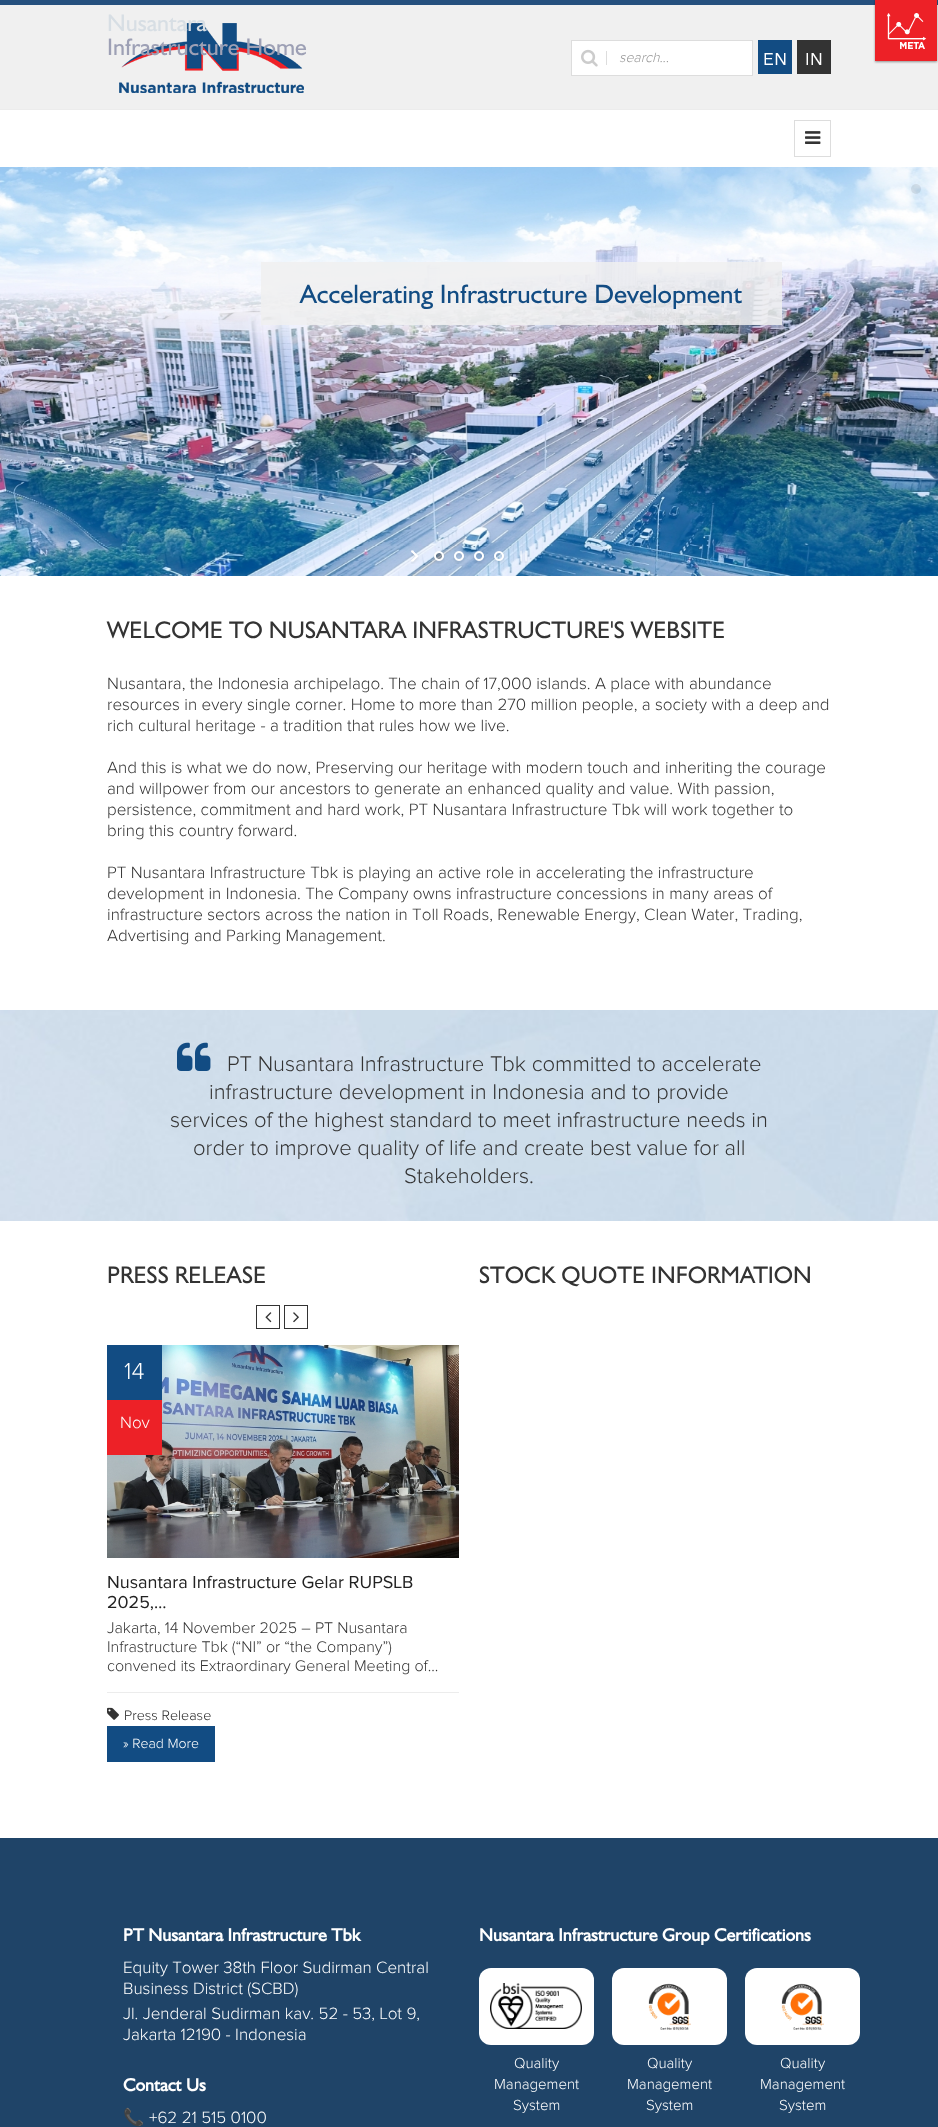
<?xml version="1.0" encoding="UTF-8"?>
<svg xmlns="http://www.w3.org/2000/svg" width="938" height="2127">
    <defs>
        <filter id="blur1" x="-50%" y="-200%" width="200%" height="500%"><feGaussianBlur stdDeviation="1"/></filter>
    </defs>
    <rect width="100%" height="100%" fill="#FFFFFF"/>
    <rect x="0" y="0" width="938" height="5" fill="#25507E"/>
    <rect x="0" y="5" width="938" height="104" fill="#F0F0F0"/>
    <image x="119" y="23" width="185" height="70" href="img_01.png"/>
    <text x="107" y="31" font-family="'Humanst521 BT'" font-size="24" fill="#D7DEE4">Nusantara</text>
    <text x="107" y="55" font-family="'Humanst521 BT'" font-size="24" fill="#9DA0B5">Infrastructure Home</text>
    <rect x="571.5" y="40.5" width="181" height="35" fill="none" stroke="#DDDDDD"/>
    <rect x="572" y="41" width="180" height="34" fill="#FFFFFF"/>
    <rect x="606" y="51" width="1" height="14" fill="#DDDDDD"/>
    <image x="581" y="49" width="17" height="18" href="img_02.png"/>
    <text x="619" y="62" font-family="Proxima Nova" font-size="14" font-weight="300" font-style="italic" fill="#999999">search...</text>
    <rect x="758" y="40" width="34" height="34" fill="#124C83"/>
    <image x="764" y="53" width="22" height="12" href="img_03.png"/>
    <rect x="797" y="40" width="34" height="34" fill="#333333"/>
    <image x="806" y="53" width="16" height="12" href="img_04.png"/>
    <rect x="875" y="0" width="62" height="62" fill="#000000" fill-opacity="0.4" filter="url(#blur1)"/>
    <rect x="875" y="0" width="62" height="61" fill="#ED2127"/>
    <image x="886" y="13" width="41" height="36" href="img_05.png"/>
    <rect x="0" y="109" width="938" height="1" fill="#ECECEC"/>
    <rect x="794.5" y="120.5" width="36" height="36" fill="none" stroke="#DDDDDD"/>
    <image x="805" y="131" width="16" height="13" href="img_06.png"/>
    <image x="0" y="167" width="938" height="409" href="img_07.png"/>
    <circle cx="916" cy="189" r="5" fill="#444444" fill-opacity="0.11"/>
    <rect x="261" y="262" width="521" height="63" fill="#F0F0F0" fill-opacity="0.85"/>
    <text x="300" y="303" font-family="'Humanst521 BT'" font-size="26.75" fill="#124C83">Accelerating Infrastructure Development</text>
    <image x="411" y="550" width="8" height="14" href="img_08.png"/>
    <image x="433" y="551" width="12" height="13" href="img_09.png"/>
    <image x="453" y="551" width="12" height="13" href="img_10.png"/>
    <image x="473" y="551" width="12" height="13" href="img_11.png"/>
    <image x="493" y="551" width="12" height="13" href="img_12.png"/>
    <image x="519" y="550" width="9" height="13" href="img_13.png"/>
    <text x="107" y="638" font-family="'Humanst521 BT'" font-size="24" fill="#333333">WELCOME TO NUSANTARA INFRASTRUCTURE'S WEBSITE</text>
    <text font-family="Proxima Nova" font-size="17" font-weight="300" fill="#333333">
        <tspan x="107" y="689">Nusantara, the Indonesia archipelago. The chain of 17,000 islands. A place with abundance</tspan>
        <tspan x="107" y="710">resources in every single corner. Home to more than 270 million people, a society with a deep and</tspan>
        <tspan x="107" y="731">rich cultural heritage - a tradition that rules how we live.</tspan>
    </text>
    <text font-family="Proxima Nova" font-size="17" font-weight="300" fill="#333333">
        <tspan x="107" y="773">And this is what we do now, Preserving our heritage with modern touch and inheriting the courage</tspan>
        <tspan x="107" y="794">and willpower from our ancestors to generate an enhanced quality and value. With passion,</tspan>
        <tspan x="107" y="815">persistence, commitment and hard work, PT Nusantara Infrastructure Tbk will work together to</tspan>
        <tspan x="107" y="836">bring this country forward.</tspan>
    </text>
    <text font-family="Proxima Nova" font-size="17" font-weight="300" fill="#333333">
        <tspan x="107" y="878">PT Nusantara Infrastructure Tbk is playing an active role in accelerating the infrastructure</tspan>
        <tspan x="107" y="899">development in Indonesia. The Company owns infrastructure concessions in many areas of</tspan>
        <tspan x="107" y="920">infrastructure sectors across the nation in Toll Roads, Renewable Energy, Clean Water, Trading,</tspan>
        <tspan x="107" y="941">Advertising and Parking Management.</tspan>
    </text>
    <image x="0" y="1010" width="938" height="211" href="img_14.png"/>
    <image x="177" y="1042" width="34" height="29" href="img_15.png"/>
    <text x="227" y="1071" font-family="Proxima Nova" font-size="22" font-weight="300" fill="#333333">PT Nusantara Infrastructure Tbk committed to accelerate</text>
    <text x="209" y="1099" font-family="Proxima Nova" font-size="22" font-weight="300" fill="#333333">infrastructure development in Indonesia and to provide</text>
    <text x="170" y="1127" font-family="Proxima Nova" font-size="22" font-weight="300" fill="#333333">services of the highest standard to meet infrastructure needs in</text>
    <text x="193" y="1155" font-family="Proxima Nova" font-size="22" font-weight="300" fill="#333333">order to improve quality of life and create best value for all</text>
    <text x="404" y="1183" font-family="Proxima Nova" font-size="22" font-weight="300" fill="#333333">Stakeholders.</text>
    <text x="107" y="1283" font-family="'Humanst521 BT'" font-size="24" fill="#333333">PRESS RELEASE</text>
    <rect x="256.5" y="1305.5" width="23" height="23" fill="none" stroke="#333333"/>
    <image x="265" y="1312" width="7" height="11" href="img_16.png"/>
    <rect x="284.5" y="1305.5" width="23" height="23" fill="none" stroke="#333333"/>
    <image x="293" y="1312" width="6" height="11" href="img_17.png"/>
    <image x="107" y="1345" width="352" height="213" href="img_18.png"/>
    <rect x="107" y="1345" width="55" height="55" fill="#124C83"/>
    <text x="124" y="1379" font-family="Proxima Nova" font-size="24" font-weight="300" fill="#FFFFFF">14</text>
    <rect x="107" y="1400" width="55" height="55" fill="#ED2127"/>
    <text x="120" y="1428" font-family="Proxima Nova" font-size="17" font-weight="300" fill="#FFFFFF">Nov</text>
    <text font-family="Proxima Nova" font-size="18" fill="#222222">
        <tspan x="107" y="1588">Nusantara Infrastructure Gelar RUPSLB</tspan>
        <tspan x="107" y="1608">2025,…</tspan>
    </text>
    <text font-family="Proxima Nova" font-size="16" font-weight="300" fill="#333333">
        <tspan x="107" y="1633">Jakarta, 14 November 2025 – PT Nusantara</tspan>
        <tspan x="107" y="1652">Infrastructure Tbk (“NI” or “the Company”)</tspan>
        <tspan x="107" y="1671">convened its Extraordinary General Meeting of…</tspan>
    </text>
    <rect x="107" y="1692" width="352" height="1" fill="#ECECEC"/>
    <image x="107" y="1707" width="12" height="13" href="img_19.png"/>
    <text x="124" y="1720" font-family="Proxima Nova" font-size="14.25" font-weight="300" fill="#222222">Press Release</text>
    <rect x="107" y="1726" width="108" height="36" fill="#124C83"/>
    <text x="123" y="1748" font-family="Proxima Nova" font-size="14" font-weight="300" fill="#FFFFFF">» Read More</text>
    <text x="479" y="1283" font-family="'Humanst521 BT'" font-size="24" fill="#333333">STOCK QUOTE INFORMATION</text>
    <rect x="0" y="1838" width="938" height="289" fill="#1F4468"/>
    <text x="123" y="1941" font-family="'Humanst521 BT'" font-size="18" font-weight="700" fill="#FFFFFF">PT Nusantara Infrastructure Tbk</text>
    <text font-family="Proxima Nova" font-size="17" font-weight="300" fill="#FFFFFF">
        <tspan x="123" y="1973">Equity Tower 38th Floor Sudirman Central</tspan>
        <tspan x="123" y="1994">Business District (SCBD)</tspan>
        <tspan x="123" y="2019">Jl. Jenderal Sudirman kav. 52 - 53, Lot 9,</tspan>
        <tspan x="123" y="2040">Jakarta 12190 - Indonesia</tspan>
    </text>
    <text x="123" y="2091" font-family="'Humanst521 BT'" font-size="18" font-weight="700" fill="#FFFFFF">Contact Us</text>
    <text x="123" y="2123" font-family="Noto Color Emoji" font-size="17" fill="#FFFFFF">📞</text>
    <text x="149" y="2123" font-family="Proxima Nova" font-size="17" font-weight="300" fill="#FFFFFF">+62 21 515 0100</text>
    <text x="479" y="1941" font-family="'Humanst521 BT'" font-size="18" font-weight="700" fill="#FFFFFF">Nusantara Infrastructure Group Certifications</text>
    <rect x="479" y="1968" width="115" height="77" rx="12" fill="#FFFFFF"/>
    <image x="490" y="1983" width="92" height="46" href="img_20.png"/>
    <text x="514" y="2068" font-family="Proxima Nova" font-size="15" font-weight="300" fill="#FFFFFF">Quality</text>
    <text x="494" y="2089" font-family="Proxima Nova" font-size="15" font-weight="300" fill="#FFFFFF">Management</text>
    <text x="513" y="2110" font-family="Proxima Nova" font-size="15" font-weight="300" fill="#FFFFFF">System</text>
    <rect x="612" y="1968" width="115" height="77" rx="12" fill="#FFFFFF"/>
    <image x="648" y="1983" width="43" height="48" href="img_21.png"/>
    <text x="647" y="2068" font-family="Proxima Nova" font-size="15" font-weight="300" fill="#FFFFFF">Quality</text>
    <text x="627" y="2089" font-family="Proxima Nova" font-size="15" font-weight="300" fill="#FFFFFF">Management</text>
    <text x="646" y="2110" font-family="Proxima Nova" font-size="15" font-weight="300" fill="#FFFFFF">System</text>
    <rect x="745" y="1968" width="115" height="77" rx="12" fill="#FFFFFF"/>
    <image x="781" y="1983" width="43" height="48" href="img_22.png"/>
    <text x="780" y="2068" font-family="Proxima Nova" font-size="15" font-weight="300" fill="#FFFFFF">Quality</text>
    <text x="760" y="2089" font-family="Proxima Nova" font-size="15" font-weight="300" fill="#FFFFFF">Management</text>
    <text x="779" y="2110" font-family="Proxima Nova" font-size="15" font-weight="300" fill="#FFFFFF">System</text>
</svg>
